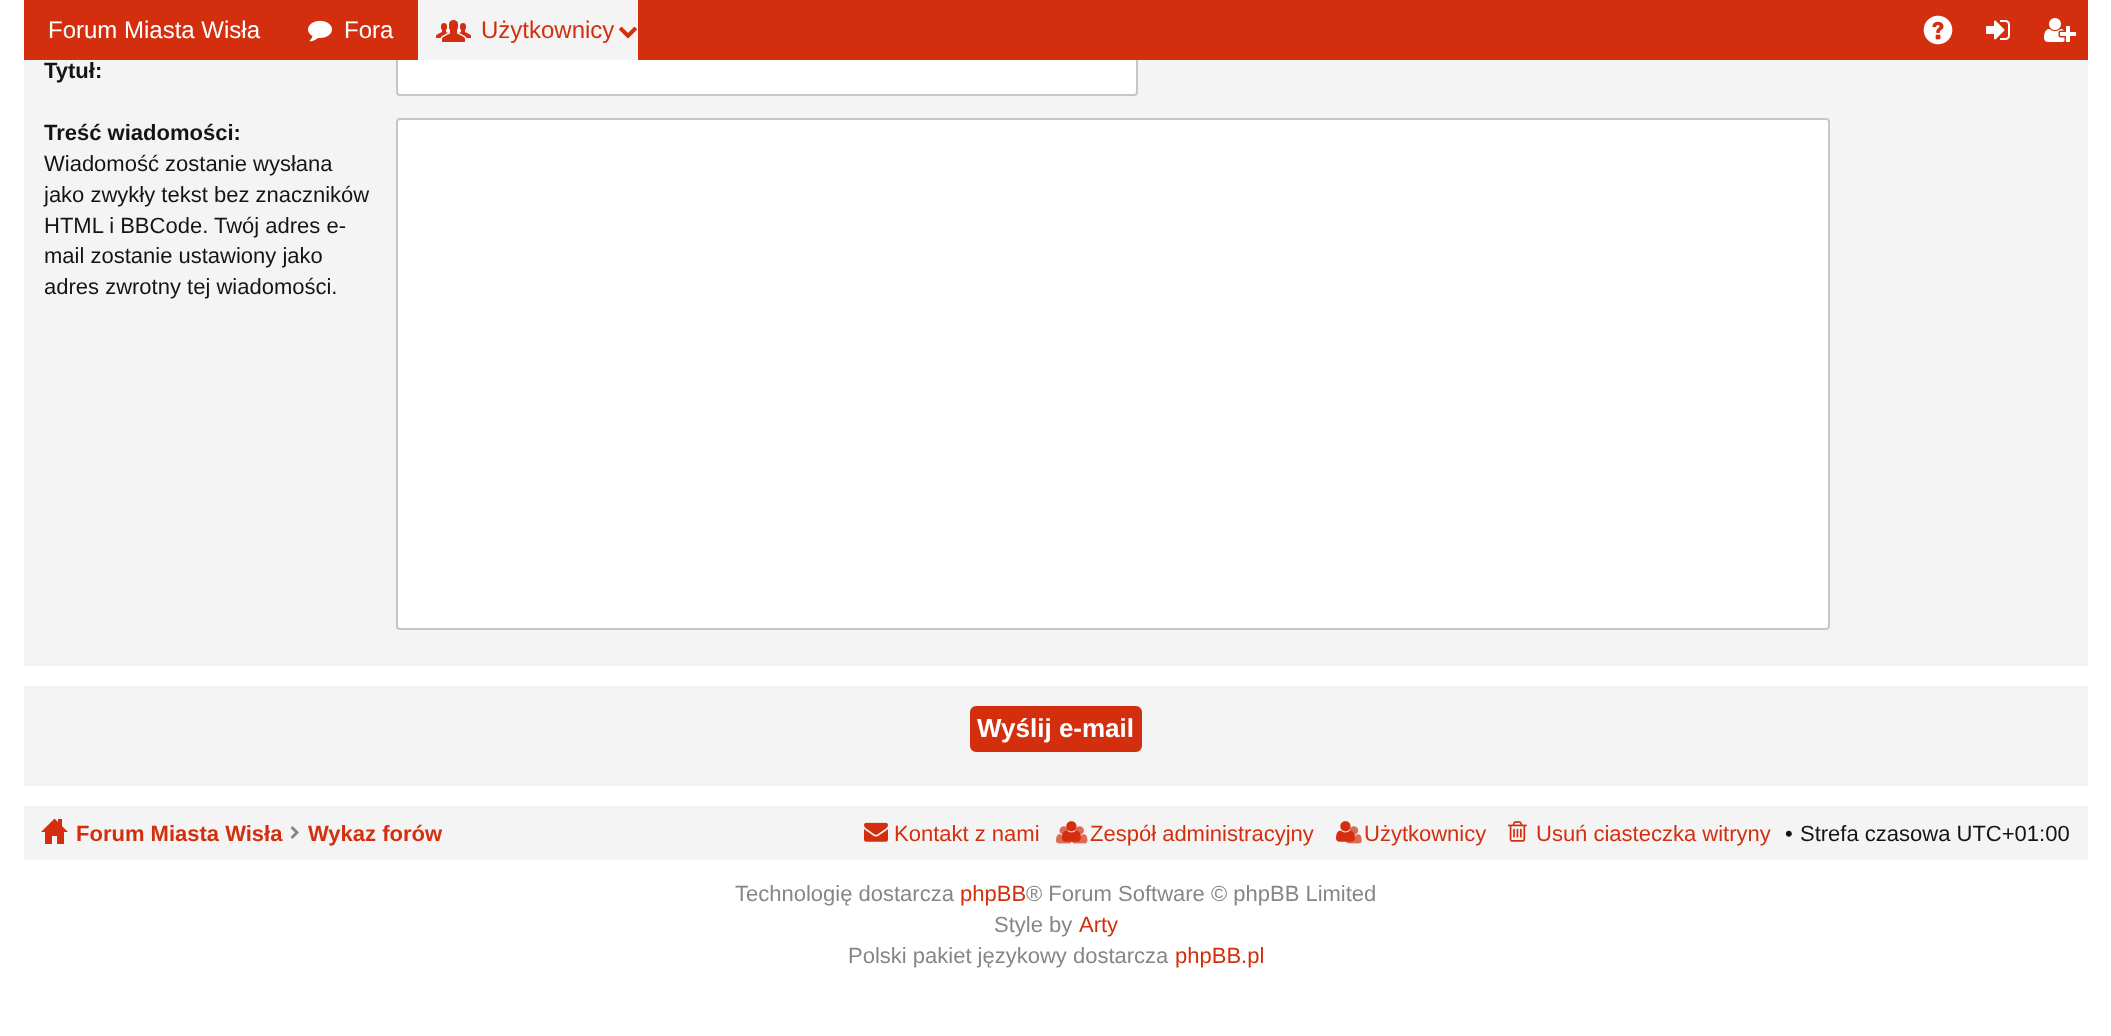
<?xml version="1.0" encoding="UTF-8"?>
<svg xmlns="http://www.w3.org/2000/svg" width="2111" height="1036">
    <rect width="100%" height="100%" fill="#FFFFFF"/>
    <rect x="24" y="60" width="2064" height="606" fill="#F4F4F4"/>
    <rect x="397" y="57" width="740" height="38" rx="3" fill="#FFFFFF" stroke="#C6C6C6" stroke-width="2"/>
    <rect x="24" y="0" width="2064" height="60" fill="#D32F0E"/>
    <text x="48" y="38" font-family="Liberation Sans" font-size="24" fill="#FFFFFF">Forum Miasta Wisła</text>
    <image x="308" y="20" width="24" height="22" href="img_01.png"/>
    <text x="344" y="38" font-family="Liberation Sans" font-size="24" fill="#FFFFFF">Fora</text>
    <rect x="418" y="0" width="220" height="60" fill="#F4F4F4"/>
    <image x="436" y="20" width="35" height="22" href="img_02.png"/>
    <text x="481" y="38" font-family="Liberation Sans" font-size="24" fill="#D32F0E">Użytkownicy</text>
    <image x="619" y="26" width="18" height="13" href="img_03.png"/>
    <image x="1923" y="15" width="30" height="30" href="img_04.png"/>
    <image x="1986" y="20" width="24" height="20" href="img_05.png"/>
    <image x="2044" y="18" width="32" height="24" href="img_06.png"/>
    <text x="44" y="78" font-family="Liberation Sans" font-size="22" font-weight="700" fill="#141414">Tytuł:</text>
    <text x="44" y="140" font-family="Liberation Sans" font-size="22" font-weight="700" fill="#141414">Treść wiadomości:</text>
    <text font-family="Liberation Sans" font-size="22" fill="#141414">
        <tspan x="44" y="171">Wiadomość zostanie wysłana</tspan>
        <tspan x="44" y="202">jako zwykły tekst bez znaczników</tspan>
        <tspan x="44" y="233">HTML i BBCode. Twój adres e-</tspan>
        <tspan x="44" y="263">mail zostanie ustawiony jako</tspan>
        <tspan x="44" y="294">adres zwrotny tej wiadomości.</tspan>
    </text>
    <rect x="397" y="119" width="1432" height="510" rx="3" fill="#FFFFFF" stroke="#C6C6C6" stroke-width="2"/>
    <rect x="24" y="686" width="2064" height="100" fill="#F4F4F4"/>
    <rect x="971" y="707" width="170" height="44" rx="5" fill="#D32F0E" stroke="#D32F0E" stroke-width="2"/>
    <text x="977" y="737" font-family="Liberation Sans" font-size="26" font-weight="700" fill="#FFFFFF">Wyślij e-mail</text>
    <rect x="24" y="806" width="2064" height="54" fill="#F4F4F4"/>
    <image x="41" y="818" width="27" height="26" href="img_07.png"/>
    <text x="76" y="841" font-family="Liberation Sans" font-size="22" font-weight="700" fill="#D32F0E">Forum Miasta Wisła</text>
    <image x="290" y="826" width="9" height="13" href="img_08.png"/>
    <text x="308" y="841" font-family="Liberation Sans" font-size="22" font-weight="700" fill="#D32F0E">Wykaz forów</text>
    <image x="864" y="822" width="24" height="20" href="img_09.png"/>
    <text x="894" y="841" font-family="Liberation Sans" font-size="22" fill="#D32F0E">Kontakt z nami</text>
    <image x="1056" y="826" width="32" height="18" href="img_11.png"/>
    <image x="1062" y="821" width="19" height="21" href="img_10.png"/>
    <text x="1090" y="841" font-family="Liberation Sans" font-size="22" fill="#D32F0E">Zespół administracyjny</text>
    <image x="1346" y="826" width="16" height="18" href="img_13.png"/>
    <image x="1336" y="821" width="19" height="21" href="img_12.png"/>
    <text x="1364" y="841" font-family="Liberation Sans" font-size="22" fill="#D32F0E">Użytkownicy</text>
    <image x="1508" y="821" width="19" height="21" href="img_14.png"/>
    <text x="1536" y="841" font-family="Liberation Sans" font-size="22" fill="#D32F0E">Usuń ciasteczka witryny</text>
    <text x="1785" y="841" font-family="Liberation Sans" font-size="22" fill="#141414">•</text>
    <text x="1800" y="841" font-family="Liberation Sans" font-size="22" fill="#141414">Strefa czasowa UTC+01:00</text>
    <text x="735" y="901" font-family="Liberation Sans" font-size="22" fill="#868686">Technologię dostarcza</text>
    <text x="960" y="901" font-family="Liberation Sans" font-size="22" fill="#D32F0E">phpBB</text>
    <text x="1026" y="901" font-family="Liberation Sans" font-size="22" fill="#868686">® Forum Software © phpBB Limited</text>
    <text x="994" y="932" font-family="Liberation Sans" font-size="22" fill="#868686">Style by</text>
    <text x="1079" y="932" font-family="Liberation Sans" font-size="22" fill="#D32F0E">Arty</text>
    <text x="848" y="963" font-family="Liberation Sans" font-size="22" fill="#868686">Polski pakiet językowy dostarcza</text>
    <text x="1175" y="963" font-family="Liberation Sans" font-size="22" fill="#D32F0E">phpBB.pl</text>
</svg>
